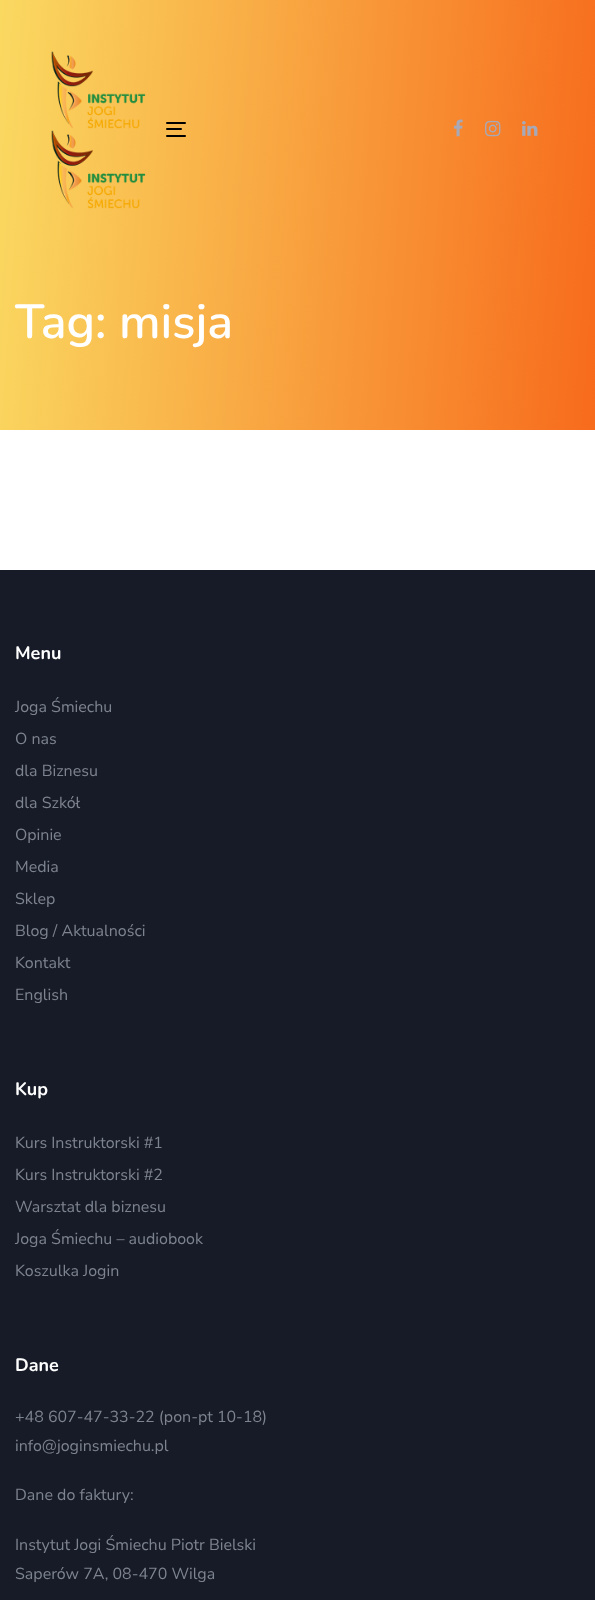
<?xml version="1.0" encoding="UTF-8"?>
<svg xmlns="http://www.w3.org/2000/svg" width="595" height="1600">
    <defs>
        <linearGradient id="g1" gradientUnits="userSpaceOnUse" x1="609" y1="237" x2="-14" y2="193"><stop offset="0" stop-color="#F76B1C"/><stop offset="1" stop-color="#FAD961"/></linearGradient>
    </defs>
    <rect width="100%" height="100%" fill="#FFFFFF"/>
    <rect x="0" y="0" width="595" height="430" fill="url(#g1)"/>
    <image x="51" y="51" width="95" height="78" href="img_01.png"/>
    <image x="51" y="130" width="95" height="79" href="img_02.png"/>
    <rect x="166" y="122" width="20" height="2" rx="1" fill="#000000"/>
    <rect x="166" y="128" width="16" height="2" rx="1" fill="#000000"/>
    <rect x="166" y="135" width="20" height="2" rx="1" fill="#000000"/>
    <image x="453" y="119" width="10" height="18" href="img_03.png"/>
    <image x="485" y="120" width="16" height="17" href="img_04.png"/>
    <image x="522" y="121" width="16" height="15" href="img_05.png"/>
    <text x="15" y="338" font-family="Nunito" font-size="48" font-weight="600" fill="#FFFFFF">Tag: misja</text>
    <rect x="0" y="570" width="595" height="1030" fill="#161B27"/>
    <text x="15" y="659" font-family="Nunito" font-size="18" font-weight="700" fill="#FFFFFF">Menu</text>
    <text x="15" y="712" font-family="Nunito Sans" font-size="16" fill="#7E8390">Joga Śmiechu</text>
    <text x="15" y="744" font-family="Nunito Sans" font-size="16" fill="#7E8390">O nas</text>
    <text x="15" y="776" font-family="Nunito Sans" font-size="16" fill="#7E8390">dla Biznesu</text>
    <text x="15" y="808" font-family="Nunito Sans" font-size="16" fill="#7E8390">dla Szkół</text>
    <text x="15" y="840" font-family="Nunito Sans" font-size="16" fill="#7E8390">Opinie</text>
    <text x="15" y="872" font-family="Nunito Sans" font-size="16" fill="#7E8390">Media</text>
    <text x="15" y="904" font-family="Nunito Sans" font-size="16" fill="#7E8390">Sklep</text>
    <text x="15" y="936" font-family="Nunito Sans" font-size="16" fill="#7E8390">Blog / Aktualności</text>
    <text x="15" y="968" font-family="Nunito Sans" font-size="16" fill="#7E8390">Kontakt</text>
    <text x="15" y="1000" font-family="Nunito Sans" font-size="16" fill="#7E8390">English</text>
    <text x="15" y="1095" font-family="Nunito" font-size="18" font-weight="700" fill="#FFFFFF">Kup</text>
    <text x="15" y="1148" font-family="Nunito Sans" font-size="16" fill="#7E8390">Kurs Instruktorski #1</text>
    <text x="15" y="1180" font-family="Nunito Sans" font-size="16" fill="#7E8390">Kurs Instruktorski #2</text>
    <text x="15" y="1212" font-family="Nunito Sans" font-size="16" fill="#7E8390">Warsztat dla biznesu</text>
    <text x="15" y="1244" font-family="Nunito Sans" font-size="16" fill="#7E8390">Joga Śmiechu – audiobook</text>
    <text x="15" y="1276" font-family="Nunito Sans" font-size="16" fill="#7E8390">Koszulka Jogin</text>
    <text x="15" y="1371" font-family="Nunito" font-size="18" font-weight="700" fill="#FFFFFF">Dane</text>
    <text font-family="Nunito Sans" font-size="16" fill="#7E8390">
        <tspan x="15" y="1422">+48 607-47-33-22 (pon-pt 10-18)</tspan>
        <tspan x="15" y="1451">info@joginsmiechu.pl</tspan>
    </text>
    <text x="15" y="1500" font-family="Nunito Sans" font-size="16" fill="#7E8390">Dane do faktury:</text>
    <text font-family="Nunito Sans" font-size="16" fill="#7E8390">
        <tspan x="15" y="1550">Instytut Jogi Śmiechu Piotr Bielski</tspan>
        <tspan x="15" y="1579">Saperów 7A, 08-470 Wilga</tspan>
    </text>
</svg>
